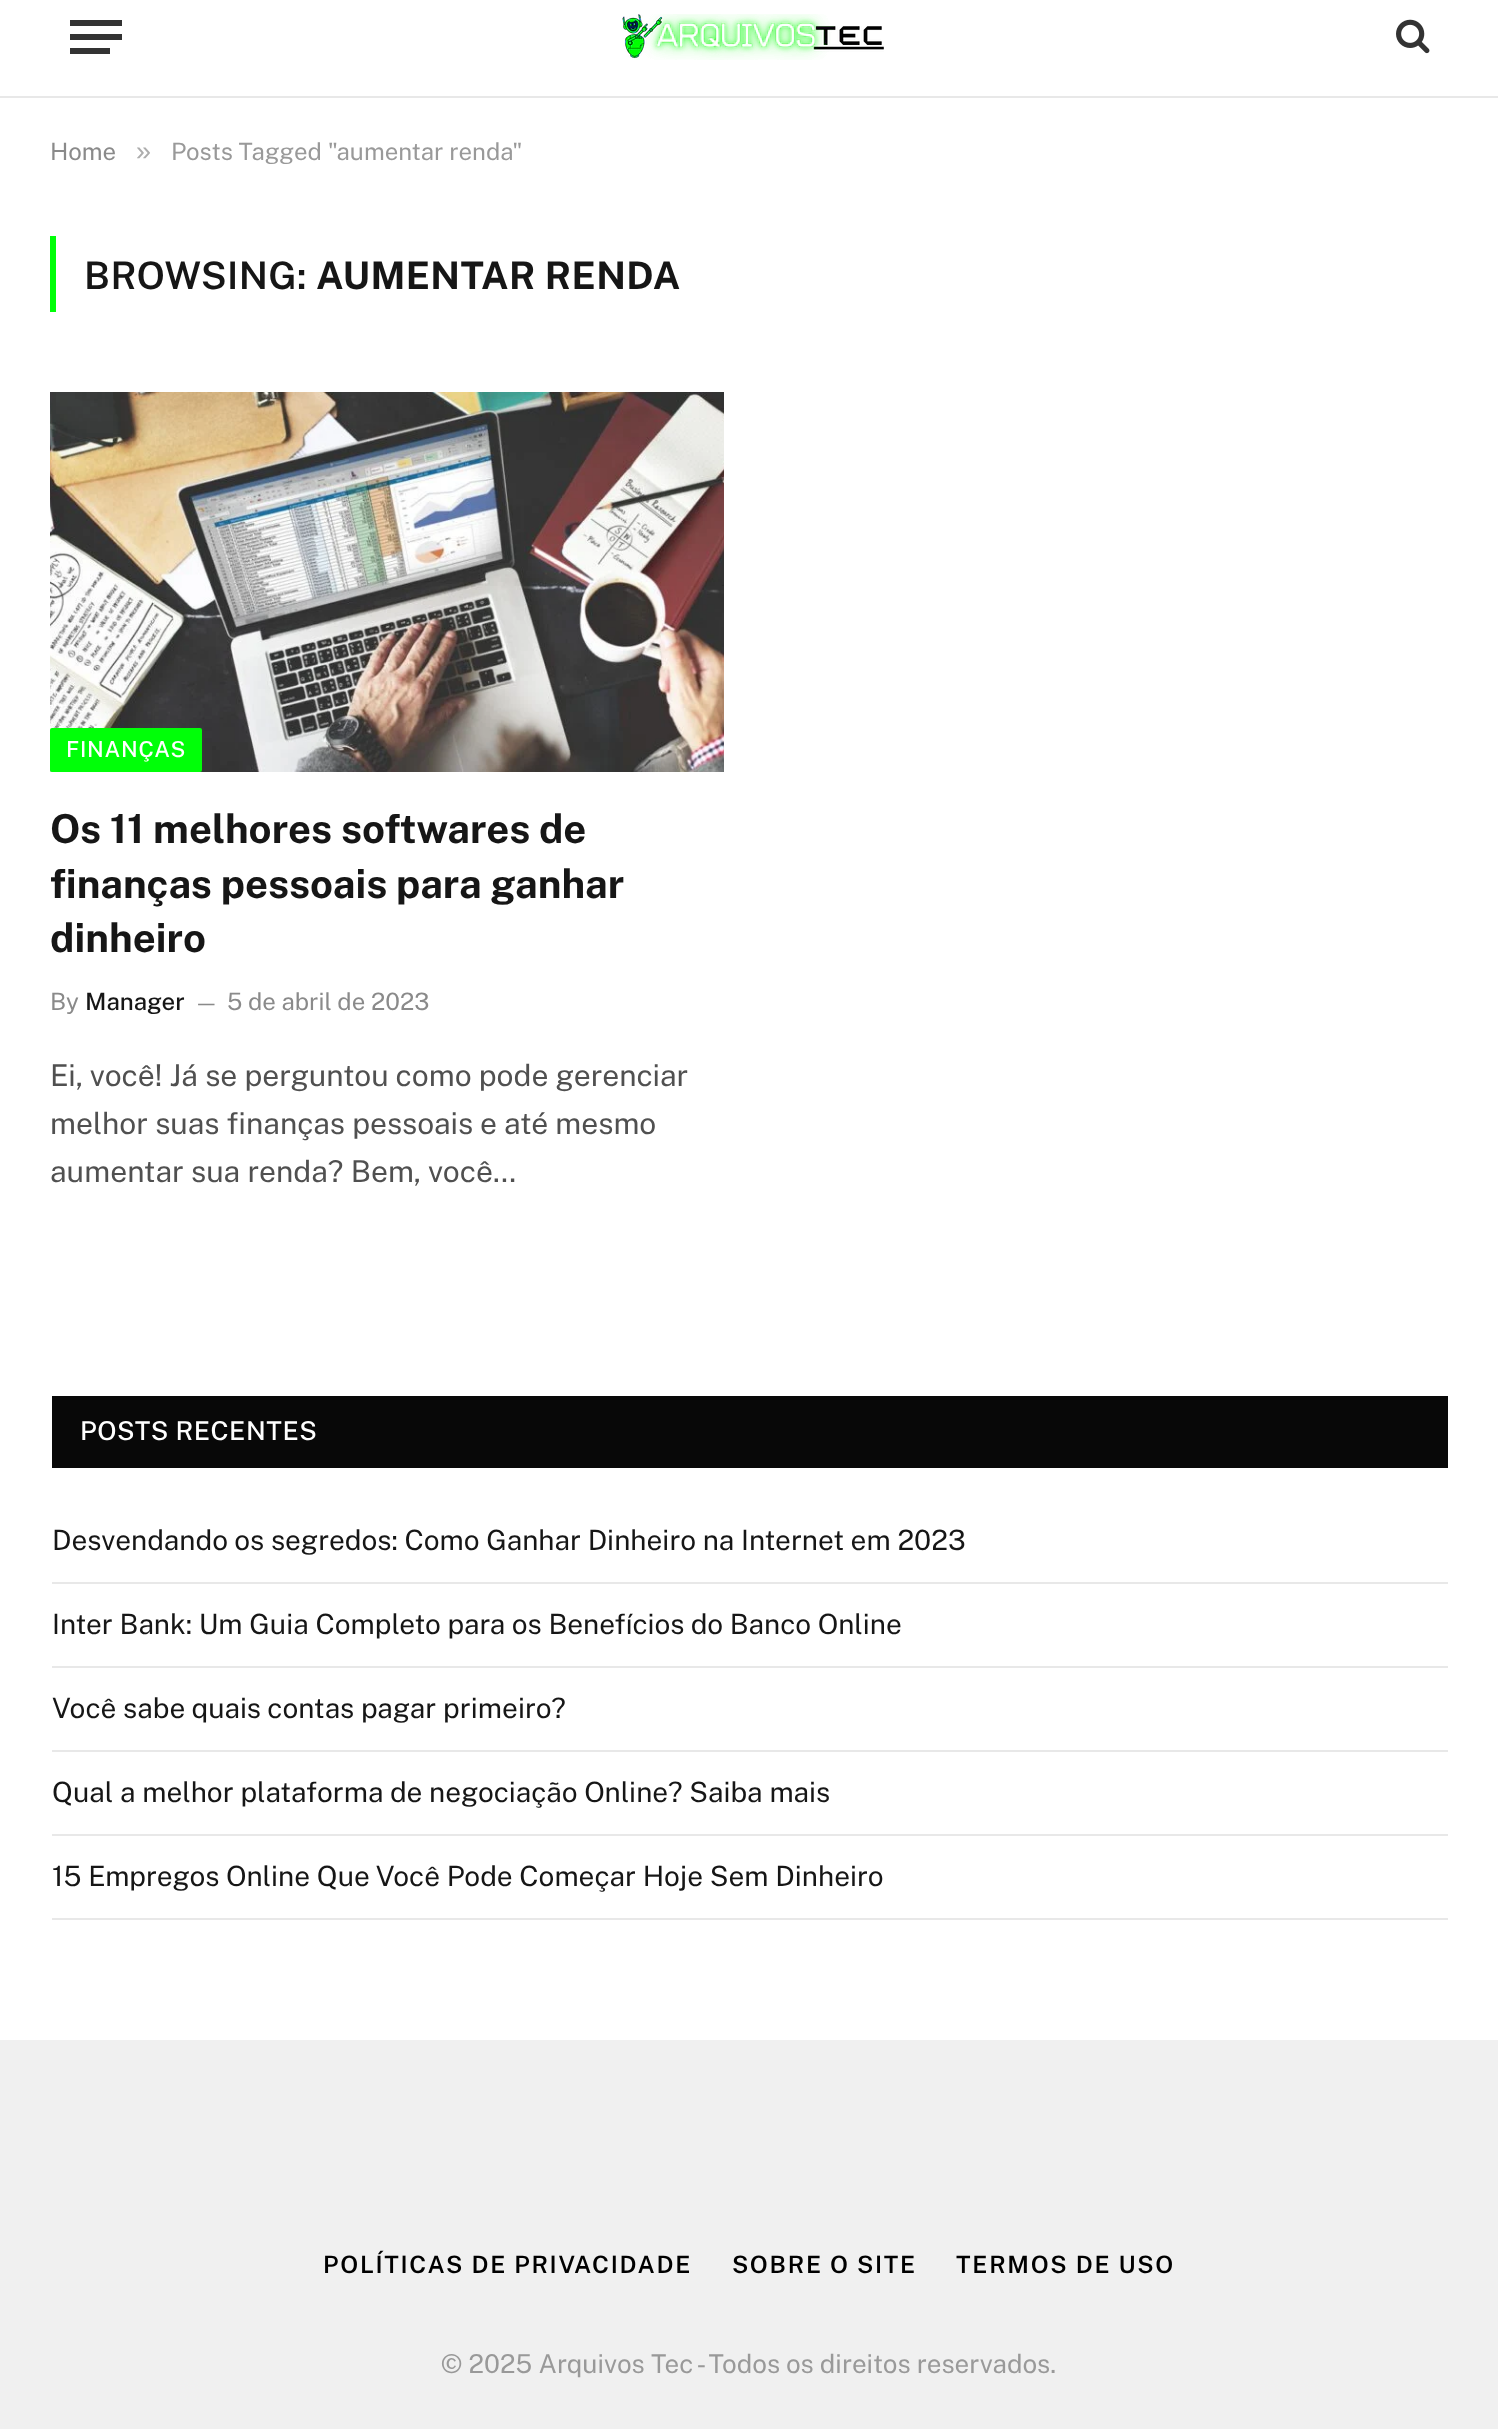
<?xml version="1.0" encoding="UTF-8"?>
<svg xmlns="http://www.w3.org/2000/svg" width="1498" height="2429">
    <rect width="100%" height="100%" fill="#FFFFFF"/>
    <rect x="0" y="96" width="1498" height="2" fill="#E8E8E8"/>
    <rect x="70" y="48" width="40" height="6" fill="#333333"/>
    <rect x="70" y="20" width="52" height="6" fill="#333333"/>
    <rect x="70" y="34" width="52" height="6" fill="#333333"/>
    <image x="622" y="14" width="262" height="46" href="img_01.png"/>
    <image x="1396" y="19" width="34" height="35" href="img_02.png"/>
    <text x="50" y="160" font-family="Public Sans" font-size="24" fill="#8A8A8A">Home</text>
    <text x="136" y="160" font-family="Liberation Sans" font-size="27" fill="#ADADAD">»</text>
    <text x="171" y="160" font-family="Public Sans" font-size="24" fill="#999999">Posts Tagged "aumentar renda"</text>
    <rect x="50" y="236" width="6" height="76" fill="#00FF08"/>
    <text x="84" y="289" font-family="Public Sans" font-size="38" font-weight="600" letter-spacing="0.4" fill="#161616">BROWSING:</text>
    <text x="316" y="289" font-family="Public Sans" font-size="38" font-weight="700" letter-spacing="0.4" fill="#161616">AUMENTAR RENDA</text>
    <image x="50" y="392" width="674" height="380" href="img_03.png"/>
    <rect x="50" y="728" width="152" height="44" rx="2" fill="#00FF08"/>
    <text x="66" y="757" font-family="Public Sans" font-size="22" font-weight="500" letter-spacing="0.75" fill="#FFFFFF">FINANÇAS</text>
    <text font-family="Public Sans" font-size="40" font-weight="700" fill="#161616">
        <tspan x="50" y="843">Os 11 melhores softwares de</tspan>
        <tspan x="50" y="898">finanças pessoais para ganhar</tspan>
        <tspan x="50" y="952">dinheiro</tspan>
    </text>
    <text x="50" y="1010" font-family="Public Sans" font-size="24" fill="#8A8A8A">By</text>
    <text x="85" y="1010" font-family="Public Sans" font-size="24" font-weight="500" fill="#161616">Manager</text>
    <text x="194" y="1010" font-family="Public Sans" font-size="22" fill="#8A8A8A">—</text>
    <text x="227" y="1010" font-family="Public Sans" font-size="24" fill="#8A8A8A">5 de abril de 2023</text>
    <text font-family="Public Sans" font-size="30" fill="#505050">
        <tspan x="50" y="1086">Ei, você! Já se perguntou como pode gerenciar</tspan>
        <tspan x="50" y="1134">melhor suas finanças pessoais e até mesmo</tspan>
        <tspan x="50" y="1182">aumentar sua renda? Bem, você…</tspan>
    </text>
    <rect x="52" y="1396" width="1396" height="72" fill="#080808"/>
    <text x="80" y="1440" font-family="Public Sans" font-size="26" font-weight="500" letter-spacing="0.5" fill="#FFFFFF">POSTS RECENTES</text>
    <rect x="52" y="1582" width="1396" height="2" fill="#E8E8E8"/>
    <text x="52" y="1550" font-family="Public Sans" font-size="28" fill="#161616">Desvendando os segredos: Como Ganhar Dinheiro na Internet em 2023</text>
    <rect x="52" y="1666" width="1396" height="2" fill="#E8E8E8"/>
    <text x="52" y="1634" font-family="Public Sans" font-size="28" fill="#161616">Inter Bank: Um Guia Completo para os Benefícios do Banco Online</text>
    <rect x="52" y="1750" width="1396" height="2" fill="#E8E8E8"/>
    <text x="52" y="1718" font-family="Public Sans" font-size="28" fill="#161616">Você sabe quais contas pagar primeiro?</text>
    <rect x="52" y="1834" width="1396" height="2" fill="#E8E8E8"/>
    <text x="52" y="1802" font-family="Public Sans" font-size="28" fill="#161616">Qual a melhor plataforma de negociação Online? Saiba mais</text>
    <rect x="52" y="1918" width="1396" height="2" fill="#E8E8E8"/>
    <text x="52" y="1886" font-family="Public Sans" font-size="28" fill="#161616">15 Empregos Online Que Você Pode Começar Hoje Sem Dinheiro</text>
    <rect x="0" y="2040" width="1498" height="389" fill="#F0F0F0"/>
    <text x="323" y="2273" font-family="Public Sans" font-size="24" font-weight="600" letter-spacing="1.7" fill="#000000">POLÍTICAS DE PRIVACIDADE</text>
    <text x="732" y="2273" font-family="Public Sans" font-size="24" font-weight="600" letter-spacing="1.7" fill="#000000">SOBRE O SITE</text>
    <text x="956" y="2273" font-family="Public Sans" font-size="24" font-weight="600" letter-spacing="1.7" fill="#000000">TERMOS DE USO</text>
    <text x="441" y="2373" font-family="Public Sans" font-size="26" fill="#999999">© 2025 Arquivos Tec - Todos os direitos reservados.</text>
</svg>
